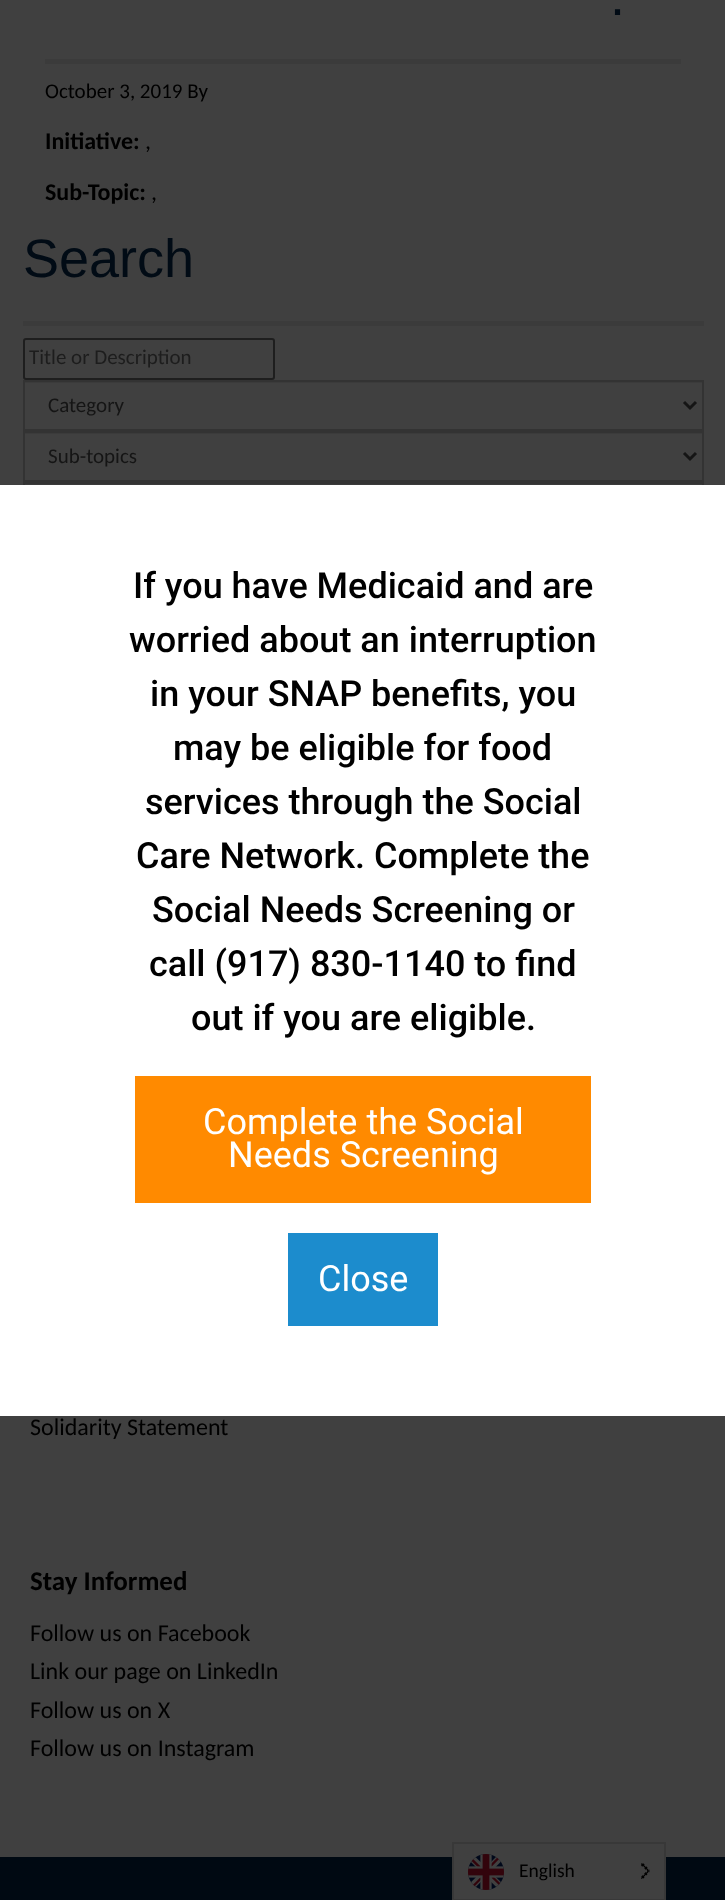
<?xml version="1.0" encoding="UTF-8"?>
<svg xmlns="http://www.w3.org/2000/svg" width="725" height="1900">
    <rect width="100%" height="100%" fill="#404040"/>
    <rect x="45" y="59" width="636" height="5" fill="#3B3B3B"/>
    <text x="610" y="15" font-family="Liberation Sans" font-size="54" fill="#010B15">.</text>
    <text x="45" y="98" font-family="Carlito" font-size="21" fill="#000000">October 3, 2019 By</text>
    <text x="45" y="149" font-family="Carlito" font-size="24" font-weight="700" fill="#000000">Initiative:</text>
    <text x="145" y="149" font-family="Carlito" font-size="24" fill="#000000">,</text>
    <text x="45" y="200" font-family="Carlito" font-size="24" font-weight="700" fill="#000000">Sub-Topic:</text>
    <text x="151" y="200" font-family="Carlito" font-size="24" fill="#000000">,</text>
    <rect x="23" y="321" width="681" height="5" fill="#3B3B3B"/>
    <text x="23" y="277" font-family="Liberation Sans" font-size="54" fill="#010B15">Search</text>
    <rect x="24" y="339" width="250" height="40" rx="2" fill="none" stroke="#1E1E1E" stroke-width="2"/>
    <text x="29" y="364" font-family="Carlito" font-size="21" fill="#1D1D1D">Title or Description</text>
    <rect x="24" y="382" width="678" height="1" fill="#3B3B3B"/>
    <rect x="24" y="381" width="679" height="49" fill="none" stroke="#333333" stroke-width="2"/>
    <path d="M 684 402 L 690 408 L 696 402" fill="none" stroke="#151515" stroke-width="3"/>
    <text x="48" y="412" font-family="Carlito" font-size="21" fill="#151515">Category</text>
    <rect x="24" y="433" width="678" height="1" fill="#3B3B3B"/>
    <rect x="24" y="432" width="679" height="49" fill="none" stroke="#333333" stroke-width="2"/>
    <path d="M 684 453 L 690 459 L 696 453" fill="none" stroke="#151515" stroke-width="3"/>
    <text x="48" y="463" font-family="Carlito" font-size="21" fill="#151515">Sub-topics</text>
    <rect x="24" y="484" width="678" height="1" fill="#3B3B3B"/>
    <rect x="24" y="483" width="679" height="49" fill="none" stroke="#333333" stroke-width="2"/>
    <text x="30" y="1435" font-family="Carlito" font-size="24" fill="#000000">Solidarity Statement</text>
    <text x="30" y="1590" font-family="Carlito" font-size="27" font-weight="700" fill="#000000">Stay Informed</text>
    <text font-family="Carlito" font-size="24" fill="#000000">
        <tspan x="30" y="1641">Follow us on Facebook</tspan>
        <tspan x="30" y="1679">Link our page on LinkedIn</tspan>
        <tspan x="30" y="1718">Follow us on X</tspan>
        <tspan x="30" y="1756">Follow us on Instagram</tspan>
    </text>
    <rect x="0" y="1857" width="725" height="43" fill="#000912"/>
    <rect x="0" y="485" width="725" height="931" fill="#FFFFFF"/>
    <text x="133" y="598" font-family="Roboto" font-size="36" font-weight="500" fill="#000000">If you have Medicaid and are</text>
    <text x="129" y="652" font-family="Roboto" font-size="36" font-weight="500" fill="#000000">worried about an interruption</text>
    <text x="150" y="706" font-family="Roboto" font-size="36" font-weight="500" fill="#000000">in your SNAP benefits, you</text>
    <text x="173" y="760" font-family="Roboto" font-size="36" font-weight="500" fill="#000000">may be eligible for food</text>
    <text x="145" y="814" font-family="Roboto" font-size="36" font-weight="500" fill="#000000">services through the Social</text>
    <text x="136" y="868" font-family="Roboto" font-size="36" font-weight="500" fill="#000000">Care Network. Complete the</text>
    <text x="152" y="922" font-family="Roboto" font-size="36" font-weight="500" fill="#000000">Social Needs Screening or</text>
    <text x="149" y="976" font-family="Roboto" font-size="36" font-weight="500" fill="#000000">call (917) 830-1140 to find</text>
    <text x="191" y="1030" font-family="Roboto" font-size="36" font-weight="500" fill="#000000">out if you are eligible.</text>
    <rect x="135" y="1076" width="456" height="127" fill="#FF8A00"/>
    <text x="203" y="1134" font-family="Roboto" font-size="36" fill="#FFFFFF">Complete the Social</text>
    <text x="228" y="1167" font-family="Roboto" font-size="36" fill="#FFFFFF">Needs Screening</text>
    <rect x="288" y="1233" width="150" height="93" fill="#1C8CCD"/>
    <text x="318" y="1291" font-family="Roboto" font-size="36" fill="#FFFFFF">Close</text>
    <rect x="454" y="1857" width="210" height="42" fill="#404040"/>
    <rect x="453" y="1843" width="212" height="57" fill="none" stroke="#383838" stroke-width="2"/>
    <image x="468" y="1854" width="36" height="36" href="img_01.png"/>
    <text x="519" y="1877" font-family="Carlito" font-size="19.5" fill="#000000">English</text>
    <image x="641" y="1863" width="9" height="16" href="img_02.png"/>
</svg>
